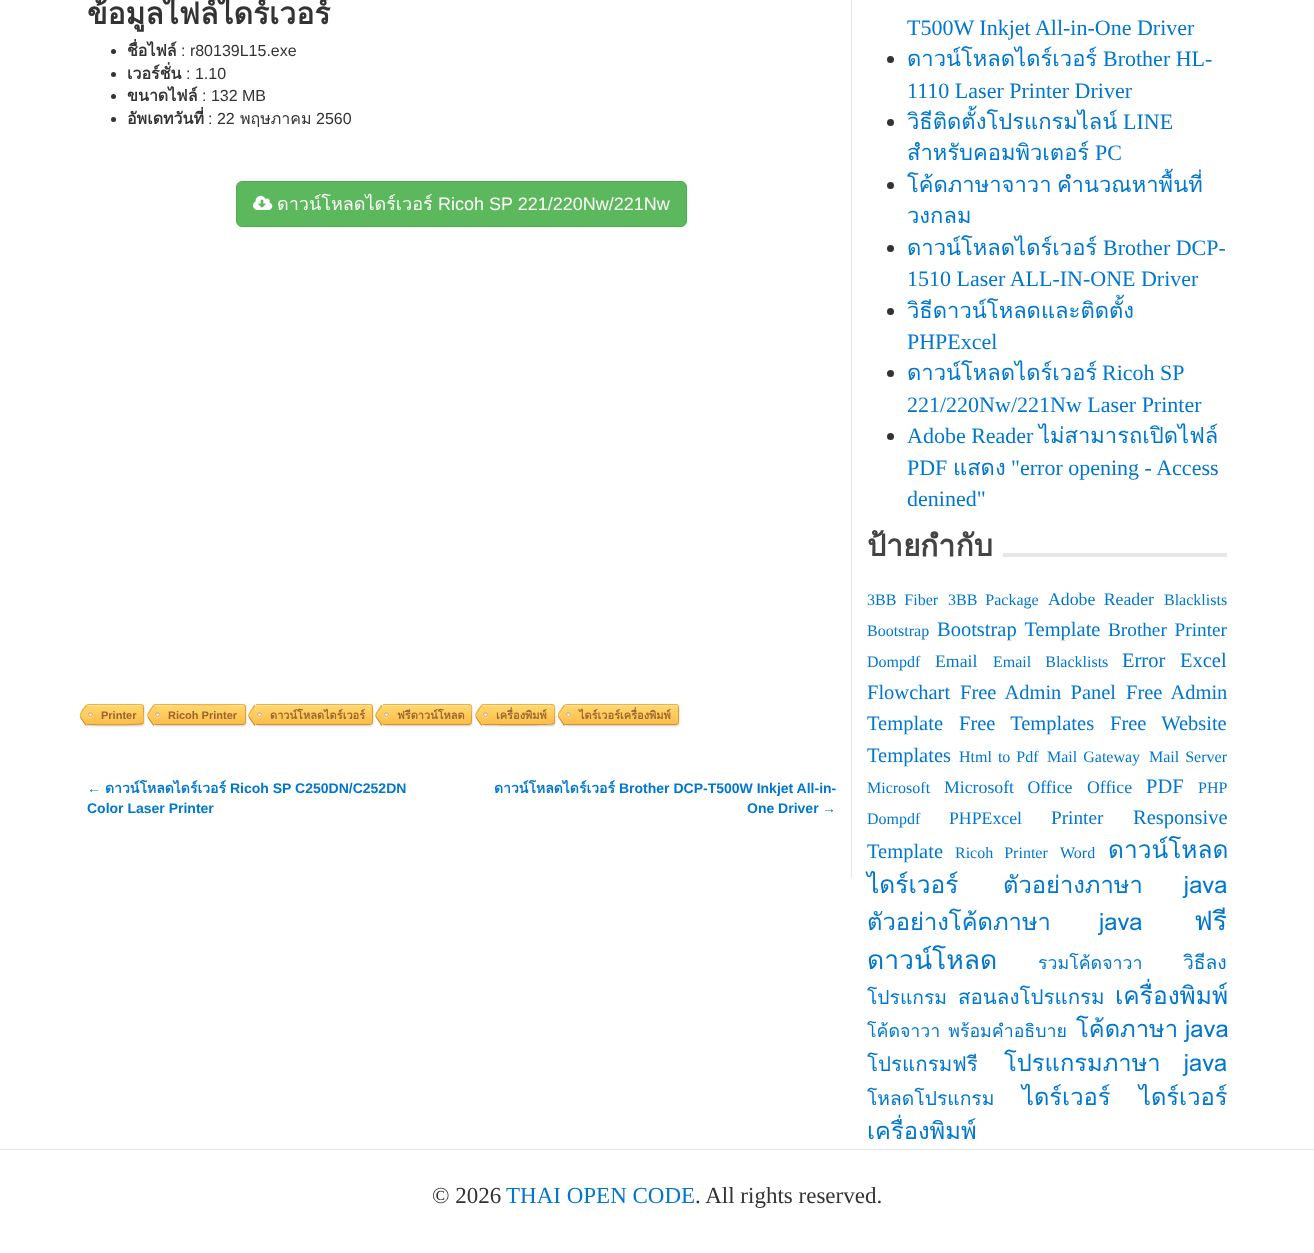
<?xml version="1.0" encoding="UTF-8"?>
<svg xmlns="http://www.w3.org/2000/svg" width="1314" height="1253">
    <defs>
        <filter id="blur1" x="-50%" y="-200%" width="200%" height="500%"><feGaussianBlur stdDeviation="1"/></filter>
        <clipPath id="clip1"><path d="M 88 704 H 141 C 142.5 704 144 705.5 144 707 V 722 C 144 723.5 142.5 725 141 725 H 88 C 87.5 725 87 724.5 87 724 V 705 C 87 704.5 87.5 704 88 704 Z"/></clipPath>
        <linearGradient id="g1" gradientUnits="userSpaceOnUse" x1="115" y1="686" x2="115" y2="705"><stop offset="0" stop-color="#FED970"/><stop offset="1" stop-color="#FEBC4A"/></linearGradient>
        <linearGradient id="g2" gradientUnits="userSpaceOnUse" x1="115" y1="705" x2="115" y2="724"><stop offset="0" stop-color="#FED970"/><stop offset="1" stop-color="#FEBC4A"/></linearGradient>
        <linearGradient id="g3" gradientUnits="userSpaceOnUse" x1="115" y1="724" x2="115" y2="743"><stop offset="0" stop-color="#FED970"/><stop offset="1" stop-color="#FEBC4A"/></linearGradient>
        <clipPath id="clip2"><path d="M 155 704 H 243 C 244.5 704 246 705.5 246 707 V 722 C 246 723.5 244.5 725 243 725 H 155 C 154.5 725 154 724.5 154 724 V 705 C 154 704.5 154.5 704 155 704 Z"/></clipPath>
        <linearGradient id="g4" gradientUnits="userSpaceOnUse" x1="200" y1="686" x2="200" y2="705"><stop offset="0" stop-color="#FED970"/><stop offset="1" stop-color="#FEBC4A"/></linearGradient>
        <linearGradient id="g5" gradientUnits="userSpaceOnUse" x1="200" y1="705" x2="200" y2="724"><stop offset="0" stop-color="#FED970"/><stop offset="1" stop-color="#FEBC4A"/></linearGradient>
        <linearGradient id="g6" gradientUnits="userSpaceOnUse" x1="200" y1="724" x2="200" y2="743"><stop offset="0" stop-color="#FED970"/><stop offset="1" stop-color="#FEBC4A"/></linearGradient>
        <clipPath id="clip3"><path d="M 257 704 H 370 C 371.5 704 373 705.5 373 707 V 722 C 373 723.5 371.5 725 370 725 H 257 C 256.5 725 256 724.5 256 724 V 705 C 256 704.5 256.5 704 257 704 Z"/></clipPath>
        <linearGradient id="g7" gradientUnits="userSpaceOnUse" x1="314" y1="686" x2="314" y2="705"><stop offset="0" stop-color="#FED970"/><stop offset="1" stop-color="#FEBC4A"/></linearGradient>
        <linearGradient id="g8" gradientUnits="userSpaceOnUse" x1="314" y1="705" x2="314" y2="724"><stop offset="0" stop-color="#FED970"/><stop offset="1" stop-color="#FEBC4A"/></linearGradient>
        <linearGradient id="g9" gradientUnits="userSpaceOnUse" x1="314" y1="724" x2="314" y2="743"><stop offset="0" stop-color="#FED970"/><stop offset="1" stop-color="#FEBC4A"/></linearGradient>
        <clipPath id="clip4"><path d="M 384 704 H 469 C 470.5 704 472 705.5 472 707 V 722 C 472 723.5 470.5 725 469 725 H 384 C 383.5 725 383 724.5 383 724 V 705 C 383 704.5 383.5 704 384 704 Z"/></clipPath>
        <linearGradient id="g10" gradientUnits="userSpaceOnUse" x1="427" y1="686" x2="427" y2="705"><stop offset="0" stop-color="#FED970"/><stop offset="1" stop-color="#FEBC4A"/></linearGradient>
        <linearGradient id="g11" gradientUnits="userSpaceOnUse" x1="427" y1="705" x2="427" y2="724"><stop offset="0" stop-color="#FED970"/><stop offset="1" stop-color="#FEBC4A"/></linearGradient>
        <linearGradient id="g12" gradientUnits="userSpaceOnUse" x1="427" y1="724" x2="427" y2="743"><stop offset="0" stop-color="#FED970"/><stop offset="1" stop-color="#FEBC4A"/></linearGradient>
        <clipPath id="clip5"><path d="M 483 704 H 552 C 553.5 704 555 705.5 555 707 V 722 C 555 723.5 553.5 725 552 725 H 483 C 482.5 725 482 724.5 482 724 V 705 C 482 704.5 482.5 704 483 704 Z"/></clipPath>
        <linearGradient id="g13" gradientUnits="userSpaceOnUse" x1="518" y1="686" x2="518" y2="705"><stop offset="0" stop-color="#FED970"/><stop offset="1" stop-color="#FEBC4A"/></linearGradient>
        <linearGradient id="g14" gradientUnits="userSpaceOnUse" x1="518" y1="705" x2="518" y2="724"><stop offset="0" stop-color="#FED970"/><stop offset="1" stop-color="#FEBC4A"/></linearGradient>
        <linearGradient id="g15" gradientUnits="userSpaceOnUse" x1="518" y1="724" x2="518" y2="743"><stop offset="0" stop-color="#FED970"/><stop offset="1" stop-color="#FEBC4A"/></linearGradient>
        <clipPath id="clip6"><path d="M 566 704 H 676 C 677.5 704 679 705.5 679 707 V 722 C 679 723.5 677.5 725 676 725 H 566 C 565.5 725 565 724.5 565 724 V 705 C 565 704.5 565.5 704 566 704 Z"/></clipPath>
        <linearGradient id="g16" gradientUnits="userSpaceOnUse" x1="622" y1="686" x2="622" y2="705"><stop offset="0" stop-color="#FED970"/><stop offset="1" stop-color="#FEBC4A"/></linearGradient>
        <linearGradient id="g17" gradientUnits="userSpaceOnUse" x1="622" y1="705" x2="622" y2="724"><stop offset="0" stop-color="#FED970"/><stop offset="1" stop-color="#FEBC4A"/></linearGradient>
        <linearGradient id="g18" gradientUnits="userSpaceOnUse" x1="622" y1="724" x2="622" y2="743"><stop offset="0" stop-color="#FED970"/><stop offset="1" stop-color="#FEBC4A"/></linearGradient>
    </defs>
    <rect width="100%" height="100%" fill="#FFFFFF"/>
    <rect x="851" y="0" width="1" height="878" fill="#E6E6E6"/>
    <text x="87" y="24" font-family="Loma" font-size="30" font-weight="700" fill="#333333">ข้อมูลไฟล์ไดร์เวอร์</text>
    <circle cx="113.5" cy="51.5" r="2.5" fill="#333333"/>
    <text x="127" y="56" font-family="Loma" font-size="16" font-weight="700" fill="#333333">ชื่อไฟล์</text>
    <text x="181" y="56" font-family="Liberation Sans" font-size="16" fill="#333333">: r80139L15.exe</text>
    <circle cx="113.5" cy="74.5" r="2.5" fill="#333333"/>
    <text x="127" y="79" font-family="Loma" font-size="16" font-weight="700" fill="#333333">เวอร์ชั่น</text>
    <text x="186" y="79" font-family="Liberation Sans" font-size="16" fill="#333333">: 1.10</text>
    <circle cx="113.5" cy="96.5" r="2.5" fill="#333333"/>
    <text x="127" y="101" font-family="Loma" font-size="16" font-weight="700" fill="#333333">ขนาดไฟล์</text>
    <text x="202" y="101" font-family="Liberation Sans" font-size="16" fill="#333333">: 132 MB</text>
    <circle cx="113.5" cy="119.5" r="2.5" fill="#333333"/>
    <text x="127" y="124" font-family="Loma" font-size="16" font-weight="700" fill="#333333">อัพเดทวันที่</text>
    <text x="208" y="124" font-family="Liberation Sans" font-size="16" fill="#333333">: 22</text>
    <text x="240" y="124" font-family="Loma" font-size="16" fill="#333333">พฤษภาคม</text>
    <text x="316" y="124" font-family="Liberation Sans" font-size="16" fill="#333333">2560</text>
    <rect x="236.5" y="181.5" width="450" height="45" rx="5.5" fill="#5CB85C" stroke="#4CAE4C"/>
    <image x="253" y="195" width="20" height="15" href="img_01.png"/>
    <text x="277" y="210" font-family="Loma" font-size="18" fill="#FFFFFF">ดาวน์โหลดไดร์เวอร์</text>
    <text x="438" y="210" font-family="Liberation Sans" font-size="18" fill="#FFFFFF">Ricoh SP 221/220Nw/221Nw</text>
    <rect x="87" y="705" width="57" height="21" rx="3" fill="#000000" fill-opacity="0.21" filter="url(#blur1)"/>
    <g clip-path="url(#clip1)">
        <path d="M 88 704 H 144 V 705 H 87 C 87 704.5 87.5 704 88 704 Z" fill="url(#g1)"/>
        <rect x="87" y="705" width="57" height="19" fill="url(#g2)"/>
        <path d="M 87 724 H 144 V 725 H 88 C 87.5 725 87 724.5 87 724 Z" fill="url(#g3)"/>
    </g>
    <path d="M 141 705 H 87 V 706 H 136 C 143 706 143 706 143 713 C 143 711 144 705 141 705 Z" fill="#FEE395"/>
    <path d="M 88 704 C 87 704 87 704 87 705 H 141 L 142 706 L 143 705 L 141 704 Z" fill="#EDB14A"/>
    <path d="M 142.5 723.5 C 143 722.5 143.5 721.5 143.5 720.5 C 143.5 719 143 707 142.5 705.5 L 143 705 C 144.5 706 144 712.5 144 714.5 C 144 716.5 144.5 723 143 724 Z" fill="#DCA03B"/>
    <path d="M 88 725 C 94 725 141 726 143 724 L 142 723 C 141 725 93 724 87 724 C 87 725 87 725 88 725 Z" fill="#CE922E"/>
    <path d="M 86 704.5 L 93 715.5 L 86 726 L 80.5 717.5 C 79.5 716.5 79.5 714.5 80.5 713 Z" fill="#FEC95B"/>
    <image x="79" y="705" width="12" height="21" href="img_02.png"/>
    <path d="M 87 707 L 90.5 712 L 86.5 706 L 83 711.5 C 81 714.5 80 714.5 82 717.5 C 81.5 716.5 81.5 715.5 82 715 Z" fill="#FEDB7C"/>
    <path d="M 86 726 C 84.5 724 79.5 717.5 80 715.5 H 80.5 C 80.5 716.5 85.5 723.5 86.5 725 L 89.5 720.5 Z" fill="#CE922E"/>
    <path d="M 86.5 706 L 80.5 715.5 H 80 C 80 712.5 84.5 707 86 704.5 L 89.5 710 Z" fill="#EDB14A"/>
    <text x="101" y="719" font-family="Liberation Sans" font-size="11" font-weight="700" fill="#996633">Printer</text>
    <path d="M 88 715 C 87.5 719 93.5 719 93 715 C 92.5 717.5 88.5 717.5 88 715 Z" fill="#FED37B"/>
    <circle cx="90.5" cy="714.5" r="2.5" fill="#FFFFFF"/>
    <path d="M 90 714 C 91 714 91.5 715 91.5 715.5 C 93 714 90 711.5 89 714 L 89.5 715.5 C 89.5 714.5 89.5 714 90 714 Z" fill="#C9C9C9"/>
    <circle cx="90.5" cy="714.5" r="2" fill="none" stroke="#DCA03B"/>
    <rect x="154" y="705" width="92" height="21" rx="3" fill="#000000" fill-opacity="0.21" filter="url(#blur1)"/>
    <g clip-path="url(#clip2)">
        <path d="M 155 704 H 246 V 705 H 154 C 154 704.5 154.5 704 155 704 Z" fill="url(#g4)"/>
        <rect x="154" y="705" width="92" height="19" fill="url(#g5)"/>
        <path d="M 154 724 H 246 V 725 H 155 C 154.5 725 154 724.5 154 724 Z" fill="url(#g6)"/>
    </g>
    <path d="M 243 705 H 154 V 706 H 243 C 245 706 245 708 245 709 C 245 708 245 705 243 705 Z" fill="#FEE395"/>
    <path d="M 155 704 C 154 704 154 704 154 705 C 182 705 211 706 239 705 C 241 705 243 704 244 706 L 245 705 L 243 704 Z" fill="#EDB14A"/>
    <path d="M 244.5 723.5 L 245 721 V 708 L 244.5 705.5 L 245 705 C 246.5 706 246 712.5 246 714.5 C 246 716.5 246.5 723 245 724 Z" fill="#DCA03B"/>
    <path d="M 155 725 H 243 L 245 724 L 244 723 L 243 724 H 154 C 154 725 154 725 155 725 Z" fill="#CE922E"/>
    <rect x="150" y="714" width="6" height="6" fill="#000000" fill-opacity="0.33" filter="url(#blur1)"/>
    <path d="M 153.5 704.5 L 160.5 715.5 L 153.5 726 L 148 717.5 C 147 716.5 147 714.5 148 713 Z" fill="#FEC95B"/>
    <image x="147" y="705" width="12" height="21" href="img_03.png"/>
    <path d="M 154 706 L 149.5 713 C 147.5 716 148.5 716.5 150.5 719.5 C 149.5 717.5 148.5 716 149 715 L 155 707 Z M 154 725 L 152 721.5 Z" fill="#FEDB7C" fill-rule="evenodd"/>
    <path d="M 153.5 726 C 152 724 147 717.5 147.5 715.5 H 148 C 148 716.5 153 723.5 154 725 L 157 720.5 Z" fill="#CE922E"/>
    <path d="M 154 706 L 148 715.5 H 147.5 C 147.5 712.5 152 707 153.5 704.5 L 157 710 Z" fill="#EDB14A"/>
    <text x="168" y="719" font-family="Liberation Sans" font-size="11" font-weight="700" fill="#996633">Ricoh Printer</text>
    <path d="M 155 715 C 154.5 719 160.5 719 160 715 C 159.5 717.5 155.5 717.5 155 715 Z" fill="#FED37B"/>
    <circle cx="157.5" cy="714.5" r="2.5" fill="#FFFFFF"/>
    <path d="M 158 714 C 158.5 714 158.5 714.5 158.5 715.5 L 159 714 C 158 711.5 155 714 156.5 715.5 C 156.5 715 157 714 158 714 Z" fill="#C9C9C9"/>
    <circle cx="157.5" cy="714.5" r="2" fill="none" stroke="#DCA03B"/>
    <rect x="256" y="705" width="117" height="21" rx="3" fill="#000000" fill-opacity="0.21" filter="url(#blur1)"/>
    <g clip-path="url(#clip3)">
        <path d="M 257 704 H 373 V 705 H 256 C 256 704.5 256.5 704 257 704 Z" fill="url(#g7)"/>
        <rect x="256" y="705" width="117" height="19" fill="url(#g8)"/>
        <path d="M 256 724 H 373 V 725 H 257 C 256.5 725 256 724.5 256 724 Z" fill="url(#g9)"/>
    </g>
    <path d="M 370 705 H 256 V 706 H 370 C 371 706 372 707 372 708 C 372 707 372 705 370 705 Z" fill="#FEE395"/>
    <path d="M 257 704 C 256 704 256 704 256 705 H 370 L 371 706 L 372 705 L 370 704 Z" fill="#EDB14A"/>
    <path d="M 371.5 723.5 L 372 720 V 708 L 371.5 705.5 L 372 705 C 373.5 706 373 712.5 373 714.5 C 373 716.5 373.5 723 372 724 Z" fill="#DCA03B"/>
    <path d="M 257 725 H 370 L 372 724 L 371 723 V 724 H 256 C 256 725 256 725 257 725 Z" fill="#CE922E"/>
    <rect x="252" y="714" width="6" height="6" fill="#000000" fill-opacity="0.33" filter="url(#blur1)"/>
    <path d="M 254.5 704.5 L 261.5 715.5 L 254.5 726 L 249 717.5 C 248 716.5 248 714.5 249 713 Z" fill="#FEC95B"/>
    <image x="248" y="705" width="12" height="21" href="img_04.png"/>
    <path d="M 256 707 L 261.5 715.5 L 255.5 706 L 251.5 711.5 C 249 715 248.5 715 251 718.5 C 250 717 249.5 715.5 250 715 Z M 255.5 725 L 254.5 723.5 Z" fill="#FEDB7C" fill-rule="evenodd"/>
    <path d="M 254.5 726 C 253.5 724 248 717.5 248.5 715.5 H 249 C 249 716.5 254.5 723.5 255.5 725 Z" fill="#CE922E"/>
    <path d="M 249 713.5 L 254.5 704.5 L 255.5 706 L 249 715.5 H 248.5 Z M 257 708.5 L 258 710 L 256.5 707.5 Z" fill="#EDB14A" fill-rule="evenodd"/>
    <text x="270" y="719" font-family="Loma" font-size="11" font-weight="700" fill="#996633">ดาวน์โหลดไดร์เวอร์</text>
    <path d="M 257 715 C 256.5 719 262.5 719 262 715 C 261.5 717.5 257.5 717.5 257 715 Z" fill="#FFFFFF" fill-opacity="0.2"/>
    <circle cx="259.5" cy="714.5" r="2.5" fill="#FFFFFF"/>
    <path d="M 260 714 C 260.5 714 260.5 714.5 260.5 715.5 L 261 714 C 260 711.5 257 714 258.5 715.5 C 258.5 715 259 714 260 714 Z" fill="#C9C9C9"/>
    <circle cx="259.5" cy="714.5" r="2" fill="none" stroke="#DCA03B"/>
    <rect x="383" y="705" width="89" height="21" rx="3" fill="#000000" fill-opacity="0.21" filter="url(#blur1)"/>
    <g clip-path="url(#clip4)">
        <path d="M 384 704 H 472 V 705 H 383 C 383 704.5 383.5 704 384 704 Z" fill="url(#g10)"/>
        <rect x="383" y="705" width="89" height="19" fill="url(#g11)"/>
        <path d="M 383 724 H 472 V 725 H 384 C 383.5 725 383 724.5 383 724 Z" fill="url(#g12)"/>
    </g>
    <path d="M 469 705 H 383 V 706 H 469 L 471 708 C 471 706 471 705 469 705 Z" fill="#FEE395"/>
    <path d="M 384 704 C 383 704 383 704 383 705 H 469 L 470 706 L 471 705 L 469 704 Z" fill="#EDB14A"/>
    <path d="M 470.5 723.5 L 471 722 V 717 L 471.5 710 C 471.5 708.5 471.5 706.5 470.5 705.5 L 471 705 C 472.5 706 472 712.5 472 714.5 C 472 716.5 472.5 723 471 724 Z" fill="#DCA03B"/>
    <path d="M 384 725 H 469 L 471 724 L 470 723 L 469 724 H 383 C 383 725 383 725 384 725 Z" fill="#CE922E"/>
    <rect x="379" y="714" width="6" height="6" fill="#000000" fill-opacity="0.33" filter="url(#blur1)"/>
    <path d="M 381.5 704.5 L 388.5 715.5 L 381.5 726 L 376 717.5 C 375 716.5 375 714.5 376 713 Z" fill="#FEC95B"/>
    <image x="375" y="705" width="12" height="21" href="img_05.png"/>
    <path d="M 383 707 L 388.5 715.5 L 382.5 706 L 378.5 711.5 C 376.5 714.5 375.5 714.5 377.5 717.5 C 377 716.5 376.5 715.5 377 715 Z" fill="#FEDB7C"/>
    <path d="M 375.5 716.5 V 715.5 H 376.5 V 716.5 L 382.5 725 L 381.5 726 Z M 382.5 725 L 385 720.5 Z" fill="#CE922E" fill-rule="evenodd"/>
    <path d="M 375.5 715.5 C 375.5 713 380 707 381.5 704.5 L 382.5 706 L 376.5 714.5 V 715.5 Z M 382.5 706 L 385 710 Z" fill="#EDB14A" fill-rule="evenodd"/>
    <text x="397" y="719" font-family="Loma" font-size="11" font-weight="700" fill="#996633">ฟรีดาวน์โหลด</text>
    <path d="M 384 715 C 383.5 719 389.5 719 389 715 C 388.5 717.5 384.5 717.5 384 715 Z" fill="#FFFFFF" fill-opacity="0.2"/>
    <circle cx="386.5" cy="714.5" r="2.5" fill="#FFFFFF"/>
    <path d="M 386 714 C 387 714 387.5 715 387.5 715.5 C 389 714 386 711.5 385 714 L 385.5 715.5 C 385.5 714.5 385.5 714 386 714 Z" fill="#C9C9C9"/>
    <circle cx="386.5" cy="714.5" r="2" fill="none" stroke="#DCA03B"/>
    <rect x="482" y="705" width="73" height="21" rx="3" fill="#000000" fill-opacity="0.21" filter="url(#blur1)"/>
    <g clip-path="url(#clip5)">
        <path d="M 483 704 H 555 V 705 H 482 C 482 704.5 482.5 704 483 704 Z" fill="url(#g13)"/>
        <rect x="482" y="705" width="73" height="19" fill="url(#g14)"/>
        <path d="M 482 724 H 555 V 725 H 483 C 482.5 725 482 724.5 482 724 Z" fill="url(#g15)"/>
    </g>
    <path d="M 552 705 H 482 V 706 H 552 L 554 708 C 554 706 554 705 552 705 Z M 554 718 V 723 Z" fill="#FEE395" fill-rule="evenodd"/>
    <path d="M 483 704 C 482 704 482 704 482 705 H 552 L 553 706 L 554 705 L 552 704 Z" fill="#EDB14A"/>
    <path d="M 553.5 723.5 C 554 722 554.5 710 554.5 708.5 C 554.5 707.5 554 706.5 553.5 705.5 L 554 705 C 555.5 706 555 712.5 555 714.5 C 555 716.5 555.5 723 554 724 Z" fill="#DCA03B"/>
    <path d="M 483 725 C 491 725 553 726 554 724 L 553 723 L 550 724 H 540 H 482 C 482 725 482 725 483 725 Z" fill="#CE922E"/>
    <rect x="478" y="714" width="6" height="6" fill="#000000" fill-opacity="0.33" filter="url(#blur1)"/>
    <path d="M 481.5 704.5 L 488.5 715.5 L 481.5 726 L 476 717.5 C 475 716.5 475 714.5 476 713 Z" fill="#FEC95B"/>
    <image x="475" y="705" width="12" height="21" href="img_06.png"/>
    <path d="M 482 706 C 474.5 717.5 474.5 713 482 725 V 724.5 C 481 723 476 717 477 715 L 483 707 Z" fill="#FEDB7C"/>
    <path d="M 481.5 726 C 480 724 475 717.5 475.5 715.5 H 476 C 476 716.5 481 723.5 482 725 L 483.5 723 Z" fill="#CE922E"/>
    <path d="M 482 706 L 476 715.5 H 475.5 C 475.5 712.5 480 707 481.5 704.5 L 485 710 Z" fill="#EDB14A"/>
    <text x="496" y="719" font-family="Loma" font-size="11" font-weight="700" fill="#996633">เครื่องพิมพ์</text>
    <path d="M 483 715 C 482.5 719 488.5 719 488 715 C 487.5 717.5 483.5 717.5 483 715 Z" fill="#FED37B"/>
    <circle cx="485.5" cy="714.5" r="2.5" fill="#FFFFFF"/>
    <path d="M 486 714 C 486.5 714 486.5 714.5 486.5 715.5 L 487 714 C 486 711.5 483 714 484.5 715.5 C 484.5 715 485 714 486 714 Z" fill="#C9C9C9"/>
    <circle cx="485.5" cy="714.5" r="2" fill="none" stroke="#DCA03B"/>
    <rect x="565" y="705" width="114" height="21" rx="3" fill="#000000" fill-opacity="0.21" filter="url(#blur1)"/>
    <g clip-path="url(#clip6)">
        <path d="M 566 704 H 679 V 705 H 565 C 565 704.5 565.5 704 566 704 Z" fill="url(#g16)"/>
        <rect x="565" y="705" width="114" height="19" fill="url(#g17)"/>
        <path d="M 565 724 H 679 V 725 H 566 C 565.5 725 565 724.5 565 724 Z" fill="url(#g18)"/>
    </g>
    <path d="M 676 705 H 565 V 706 H 677 L 678 707 C 678 706 677 705 676 705 Z" fill="#FEE395"/>
    <path d="M 566 704 C 565 704 565 704 565 705 H 677 L 678 706 V 705 L 676 704 Z" fill="#EDB14A"/>
    <path d="M 677.5 723.5 L 678 723 V 706 L 677.5 705.5 L 678 705 C 679.5 706 679 712.5 679 714.5 C 679 716.5 679.5 723 678 724 Z" fill="#DCA03B"/>
    <path d="M 566 725 H 676 L 678 724 L 677 723 L 676 724 H 565 C 565 725 565 725 566 725 Z" fill="#CE922E"/>
    <path d="M 564 704.5 L 571.5 715.5 L 564 726 L 558.5 717.5 C 557.5 716.5 557.5 714.5 558.5 713 Z" fill="#FEC95B"/>
    <image x="558" y="705" width="12" height="21" href="img_07.png"/>
    <path d="M 565 706 L 560 713 C 558 716 559 716 561 719 C 560 717.5 559.5 716 560 715 L 566 707 Z M 565 725 L 564.5 724.5 Z" fill="#FEDB7C" fill-rule="evenodd"/>
    <path d="M 558 716.5 V 715.5 H 559 V 716.5 L 565 725 L 564 726 Z M 565 725 L 566 723 Z" fill="#CE922E" fill-rule="evenodd"/>
    <path d="M 565 706 L 559 714.5 V 715.5 H 558 C 558 713 562.5 707 564 704.5 L 567 709 Z" fill="#EDB14A"/>
    <text x="579" y="719" font-family="Loma" font-size="11" font-weight="700" fill="#996633">ไดร์เวอร์เครื่องพิมพ์</text>
    <path d="M 566 715 C 565.5 719 571.5 719 571 715 C 570.5 717.5 566.5 717.5 566 715 Z" fill="#FED37B"/>
    <circle cx="568.5" cy="714.5" r="2.5" fill="#FFFFFF"/>
    <path d="M 568 714 C 569 714 569.5 715 569.5 715.5 C 571 714 568 711.5 567 714 L 567.5 715.5 C 567.5 714.5 567.5 714 568 714 Z" fill="#C9C9C9"/>
    <circle cx="568.5" cy="714.5" r="2" fill="none" stroke="#DCA03B"/>
    <text x="87" y="793" font-family="Liberation Sans" font-size="14" fill="#0077CF">←</text>
    <text x="105" y="793" font-family="Loma" font-size="14" font-weight="700" fill="#0077CF">ดาวน์โหลดไดร์เวอร์</text>
    <text x="230" y="793" font-family="Liberation Sans" font-size="14" font-weight="700" fill="#0077CF">Ricoh SP C250DN/C252DN</text>
    <text x="87" y="813" font-family="Liberation Sans" font-size="14" font-weight="700" fill="#0077CF">Color Laser Printer</text>
    <text x="494" y="793" font-family="Loma" font-size="14" font-weight="700" fill="#0077CF">ดาวน์โหลดไดร์เวอร์</text>
    <text x="619" y="793" font-family="Liberation Sans" font-size="14" font-weight="700" fill="#0077CF">Brother DCP-T500W Inkjet All-in-</text>
    <text x="747" y="813" font-family="Liberation Sans" font-size="14" font-weight="700" fill="#0077CF">One Driver</text>
    <text x="822" y="813" font-family="Liberation Sans" font-size="14" fill="#0077CF">→</text>
    <text x="907" y="35" font-family="Liberation Serif" font-size="22" fill="#0077CF">T500W Inkjet All-in-One Driver</text>
    <circle cx="890.5" cy="59.5" r="3.5" fill="#333333"/>
    <text x="907" y="66" font-family="Loma" font-size="22" fill="#0077CF">ดาวน์โหลดไดร์เวอร์</text>
    <text x="1103" y="66" font-family="Liberation Serif" font-size="22" fill="#0077CF">Brother HL-</text>
    <text x="907" y="98" font-family="Liberation Serif" font-size="22" fill="#0077CF">1110 Laser Printer Driver</text>
    <circle cx="890.5" cy="122.5" r="3.5" fill="#333333"/>
    <text x="907" y="129" font-family="Loma" font-size="22" fill="#0077CF">วิธีติดตั้งโปรแกรมไลน์</text>
    <text x="1123" y="129" font-family="Liberation Serif" font-size="22" fill="#0077CF">LINE</text>
    <text x="907" y="160" font-family="Loma" font-size="22" fill="#0077CF">สำหรับคอมพิวเตอร์</text>
    <text x="1095" y="160" font-family="Liberation Serif" font-size="22" fill="#0077CF">PC</text>
    <circle cx="890.5" cy="185.5" r="3.5" fill="#333333"/>
    <text font-family="Loma" font-size="22" fill="#0077CF">
        <tspan x="907" y="192" word-spacing="-2">โค้ดภาษาจาวา คำนวณหาพื้นที่</tspan>
        <tspan x="907" y="223">วงกลม</tspan>
    </text>
    <circle cx="890.5" cy="248.5" r="3.5" fill="#333333"/>
    <text x="907" y="255" font-family="Loma" font-size="22" fill="#0077CF">ดาวน์โหลดไดร์เวอร์</text>
    <text x="1103" y="255" font-family="Liberation Serif" font-size="22" fill="#0077CF">Brother DCP-</text>
    <text x="907" y="286" font-family="Liberation Serif" font-size="22" fill="#0077CF">1510 Laser ALL-IN-ONE Driver</text>
    <circle cx="890.5" cy="311.5" r="3.5" fill="#333333"/>
    <text x="907" y="318" font-family="Loma" font-size="22" fill="#0077CF">วิธีดาวน์โหลดและติดตั้ง</text>
    <text x="907" y="349" font-family="Liberation Serif" font-size="22" fill="#0077CF">PHPExcel</text>
    <circle cx="890.5" cy="373.5" r="3.5" fill="#333333"/>
    <text x="907" y="380" font-family="Loma" font-size="22" fill="#0077CF">ดาวน์โหลดไดร์เวอร์</text>
    <text x="1102" y="380" font-family="Liberation Serif" font-size="22" fill="#0077CF">Ricoh SP</text>
    <text x="907" y="412" font-family="Liberation Serif" font-size="22" fill="#0077CF">221/220Nw/221Nw Laser Printer</text>
    <circle cx="890.5" cy="436.5" r="3.5" fill="#333333"/>
    <text x="907" y="443" font-family="Liberation Serif" font-size="22" fill="#0077CF">Adobe Reader</text>
    <text x="1039" y="443" font-family="Loma" font-size="22" fill="#0077CF">ไม่สามารถเปิดไฟล์</text>
    <text x="907" y="475" font-family="Liberation Serif" font-size="22" fill="#0077CF">PDF</text>
    <text x="953" y="475" font-family="Loma" font-size="22" fill="#0077CF">แสดง</text>
    <text x="1011" y="475" font-family="Liberation Serif" font-size="22" fill="#0077CF">"error opening - Access</text>
    <text x="907" y="506" font-family="Liberation Serif" font-size="22" fill="#0077CF">denined"</text>
    <rect x="1003" y="553" width="224" height="4" fill="#E6E6E6"/>
    <text x="867" y="556" font-family="Loma" font-size="30" font-weight="700" fill="#444444">ป้ายกำกับ</text>
    <text x="867" y="605" word-spacing="4" font-family="Liberation Serif" font-size="16" fill="#0077CF">3BB Fiber</text>
    <text x="948" y="605" word-spacing="4" font-family="Liberation Serif" font-size="16" fill="#0077CF">3BB Package</text>
    <text x="1048" y="605" word-spacing="4" font-family="Liberation Serif" font-size="17.75" fill="#0077CF">Adobe Reader</text>
    <text x="1164" y="605" font-family="Liberation Serif" font-size="16" fill="#0077CF">Blacklists</text>
    <text x="867" y="636" font-family="Liberation Serif" font-size="16" fill="#0077CF">Bootstrap</text>
    <text x="937" y="636" word-spacing="3" font-family="Liberation Serif" font-size="20.5" fill="#0077CF">Bootstrap Template</text>
    <text x="1108" y="636" word-spacing="3" font-family="Liberation Serif" font-size="19.25" fill="#0077CF">Brother Printer</text>
    <text x="867" y="667" font-family="Liberation Serif" font-size="16" fill="#0077CF">Dompdf</text>
    <text x="935" y="667" font-family="Liberation Serif" font-size="17.75" fill="#0077CF">Email</text>
    <text x="993" y="667" word-spacing="10" font-family="Liberation Serif" font-size="16" fill="#0077CF">Email Blacklists</text>
    <text x="1122" y="667" font-family="Liberation Serif" font-size="20.5" fill="#0077CF">Error</text>
    <text x="1180" y="667" font-family="Liberation Serif" font-size="20.5" fill="#0077CF">Excel</text>
    <text x="867" y="699" font-family="Liberation Serif" font-size="20.5" fill="#0077CF">Flowchart</text>
    <text x="960" y="699" word-spacing="4" font-family="Liberation Serif" font-size="20.5" fill="#0077CF">Free Admin Panel</text>
    <text x="1126" y="699" word-spacing="4" font-family="Liberation Serif" font-size="20.5" fill="#0077CF">Free Admin</text>
    <text x="867" y="730" font-family="Liberation Serif" font-size="20.5" fill="#0077CF">Template</text>
    <text x="959" y="730" word-spacing="10" font-family="Liberation Serif" font-size="20.5" fill="#0077CF">Free Templates</text>
    <text x="1110" y="730" word-spacing="10" font-family="Liberation Serif" font-size="20.5" fill="#0077CF">Free Website</text>
    <text x="867" y="762" font-family="Liberation Serif" font-size="20.5" fill="#0077CF">Templates</text>
    <text x="959" y="762" word-spacing="2" font-family="Liberation Serif" font-size="16" fill="#0077CF">Html to Pdf</text>
    <text x="1047" y="762" word-spacing="2" font-family="Liberation Serif" font-size="16" fill="#0077CF">Mail Gateway</text>
    <text x="1149" y="762" word-spacing="2" font-family="Liberation Serif" font-size="16" fill="#0077CF">Mail Server</text>
    <text x="867" y="793" font-family="Liberation Serif" font-size="16" fill="#0077CF">Microsoft</text>
    <text x="944" y="793" word-spacing="9" font-family="Liberation Serif" font-size="17.75" fill="#0077CF">Microsoft Office</text>
    <text x="1087" y="793" font-family="Liberation Serif" font-size="17.75" fill="#0077CF">Office</text>
    <text x="1146" y="793" font-family="Liberation Serif" font-size="20.5" fill="#0077CF">PDF</text>
    <text x="1198" y="793" font-family="Liberation Serif" font-size="16" fill="#0077CF">PHP</text>
    <text x="867" y="824" font-family="Liberation Serif" font-size="16" fill="#0077CF">Dompdf</text>
    <text x="949" y="824" font-family="Liberation Serif" font-size="17.75" fill="#0077CF">PHPExcel</text>
    <text x="1051" y="824" font-family="Liberation Serif" font-size="19.25" fill="#0077CF">Printer</text>
    <text x="1133" y="824" font-family="Liberation Serif" font-size="20.5" fill="#0077CF">Responsive</text>
    <text x="867" y="858" font-family="Liberation Serif" font-size="20.5" fill="#0077CF">Template</text>
    <text x="955" y="858" word-spacing="7" font-family="Liberation Serif" font-size="16" fill="#0077CF">Ricoh Printer</text>
    <text x="1060" y="858" font-family="Liberation Serif" font-size="16" fill="#0077CF">Word</text>
    <text x="1108" y="858" font-family="Loma" font-size="24.5" fill="#0077CF">ดาวน์โหลด</text>
    <text x="867" y="893" font-family="Loma" font-size="24.5" fill="#0077CF">ไดร์เวอร์</text>
    <text x="1003" y="893" word-spacing="33" font-family="Loma" font-size="23.75" fill="#0077CF">ตัวอย่างภาษา java</text>
    <text x="867" y="930" word-spacing="40" font-family="Loma" font-size="23.75" fill="#0077CF">ตัวอย่างโค้ดภาษา java</text>
    <text x="1194" y="930" font-family="Loma" font-size="26.5" fill="#0077CF">ฟรี</text>
    <text x="867" y="969" font-family="Loma" font-size="26.5" fill="#0077CF">ดาวน์โหลด</text>
    <text x="1038" y="969" font-family="Loma" font-size="17.75" fill="#0077CF">รวมโค้ดจาวา</text>
    <text x="1183" y="969" font-family="Loma" font-size="19.25" fill="#0077CF">วิธีลง</text>
    <text x="867" y="1004" font-family="Loma" font-size="19.25" fill="#0077CF">โปรแกรม</text>
    <text x="958" y="1004" font-family="Loma" font-size="20.5" fill="#0077CF">สอนลงโปรแกรม</text>
    <text x="1115" y="1004" font-family="Loma" font-size="24.5" fill="#0077CF">เครื่องพิมพ์</text>
    <text x="867" y="1037" word-spacing="2" font-family="Loma" font-size="17.75" fill="#0077CF">โค้ดจาวา พร้อมคำอธิบาย</text>
    <text x="1076" y="1037" word-spacing="-1" font-family="Loma" font-size="23.75" fill="#0077CF">โค้ดภาษา java</text>
    <text x="867" y="1071" font-family="Loma" font-size="20.5" fill="#0077CF">โปรแกรมฟรี</text>
    <text x="1004" y="1071" word-spacing="15" font-family="Loma" font-size="23.75" fill="#0077CF">โปรแกรมภาษา java</text>
    <text x="867" y="1105" font-family="Loma" font-size="19.25" fill="#0077CF">โหลดโปรแกรม</text>
    <text x="1022" y="1105" font-family="Loma" font-size="23.75" fill="#0077CF">ไดร์เวอร์</text>
    <text x="1139" y="1105" font-family="Loma" font-size="23.75" fill="#0077CF">ไดร์เวอร์</text>
    <text x="867" y="1139" font-family="Loma" font-size="23.75" fill="#0077CF">เครื่องพิมพ์</text>
    <rect x="0" y="1149" width="1314" height="1" fill="#E6E6E6"/>
    <text x="432" y="1203" font-family="Liberation Serif" font-size="23" fill="#333333">© 2026</text>
    <text x="506" y="1203" font-family="Liberation Serif" font-size="23" fill="#0077CF">THAI OPEN CODE</text>
    <text x="695" y="1203" font-family="Liberation Serif" font-size="23" fill="#333333">. All rights reserved.</text>
</svg>
